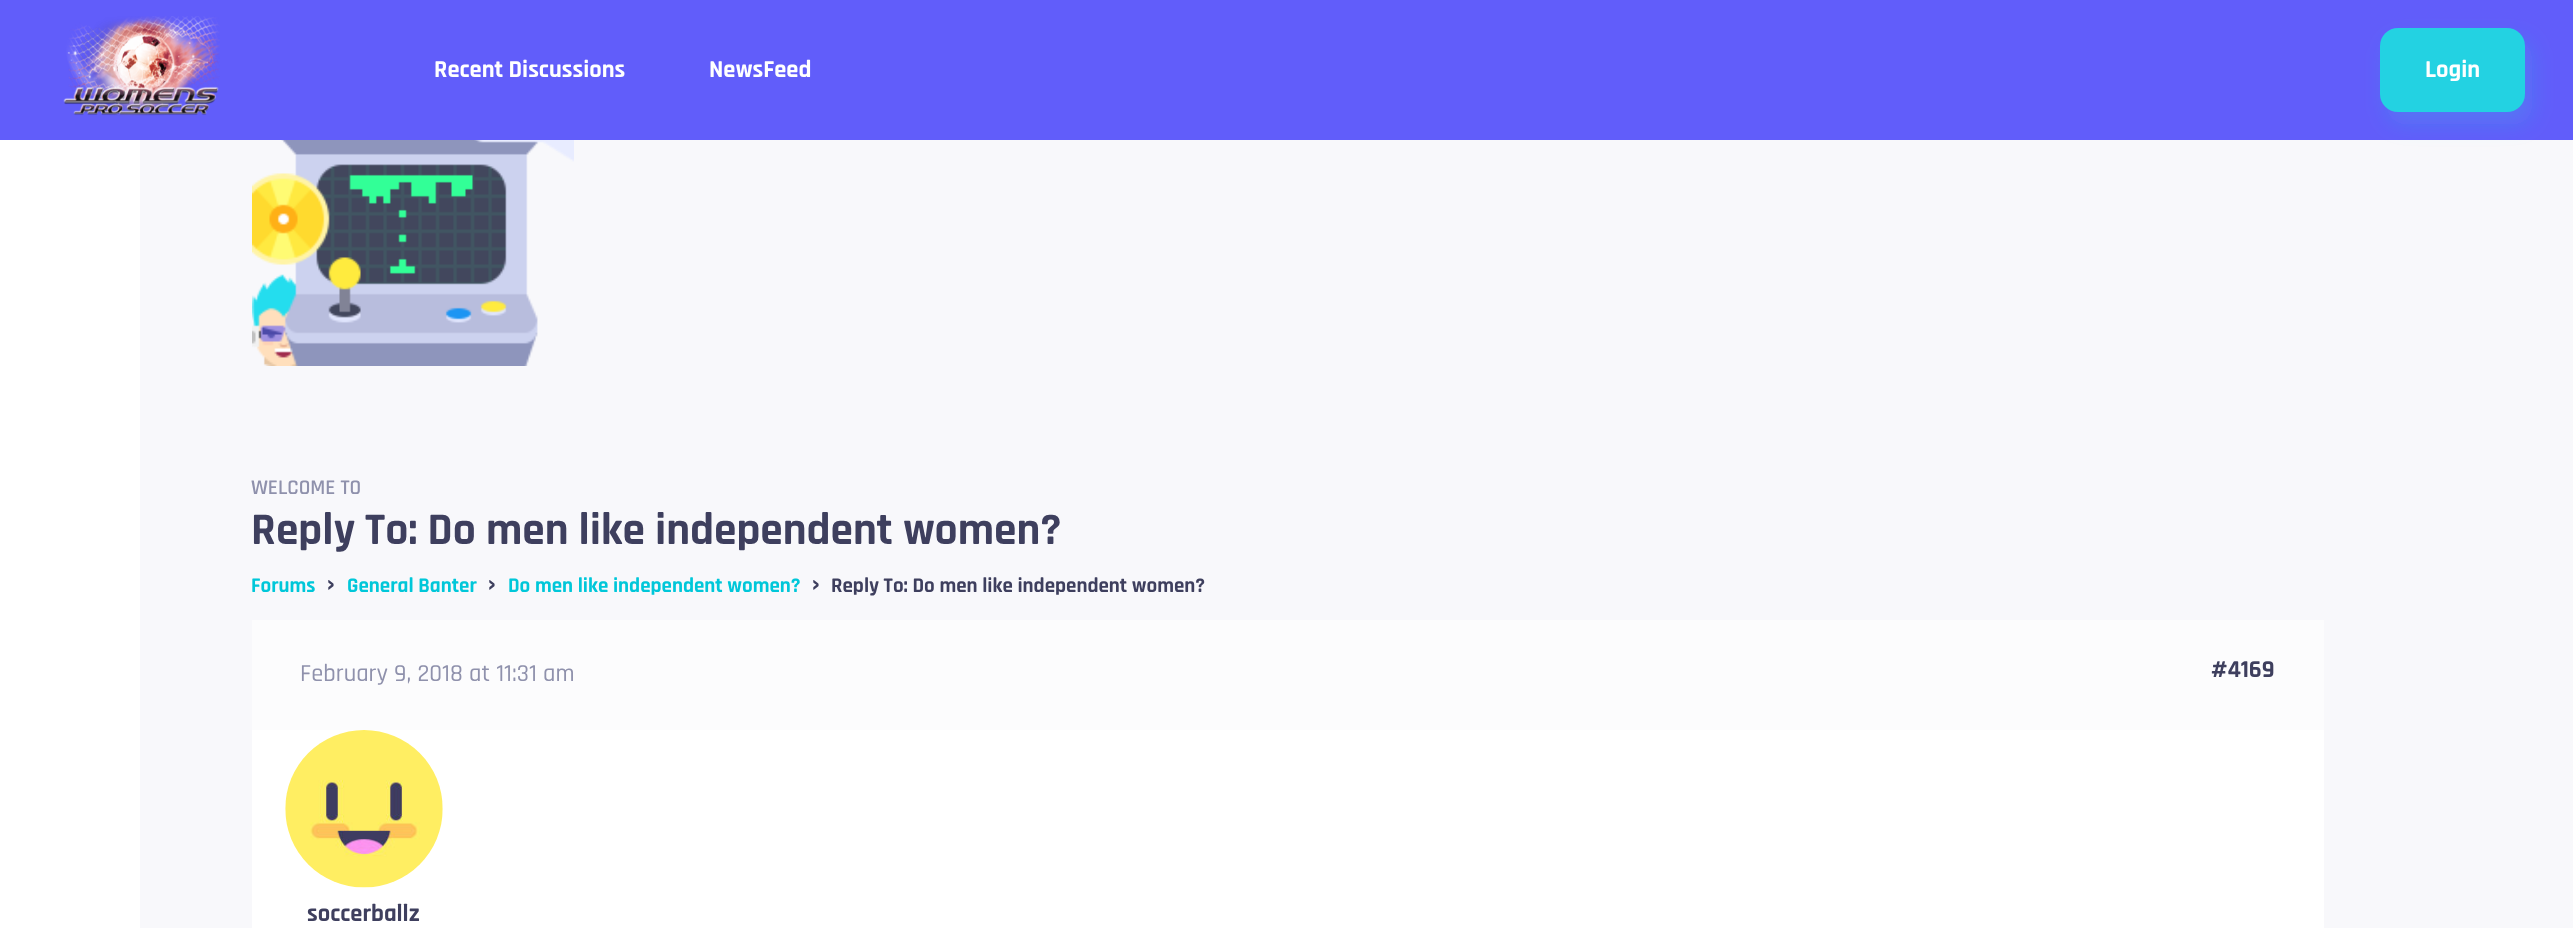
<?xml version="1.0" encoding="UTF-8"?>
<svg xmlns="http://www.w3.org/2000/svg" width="2573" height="928">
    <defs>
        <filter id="blur1" x="-50%" y="-200%" width="200%" height="500%"><feGaussianBlur stdDeviation="10.5"/></filter>
    </defs>
    <rect width="100%" height="100%" fill="#F8F8FB"/>
    <rect x="0" y="0" width="2573" height="140" fill="#615DFA"/>
    <image x="63" y="16" width="157" height="100" href="img_01.png"/>
    <text x="434" y="77" font-family="Rajdhani" font-size="24.5" font-weight="700" fill="#FFFFFF">Recent Discussions</text>
    <text x="709" y="77" font-family="Rajdhani" font-size="24.5" font-weight="700" fill="#FFFFFF">NewsFeed</text>
    <rect x="2387" y="40" width="145" height="84" rx="18" fill="#23D2E2" fill-opacity="0.2" filter="url(#blur1)"/>
    <rect x="2380" y="28" width="145" height="84" rx="18" fill="#23D2E2"/>
    <text x="2425" y="77" font-family="Rajdhani" font-size="24.5" font-weight="700" fill="#FFFFFF">Login</text>
    <rect x="0" y="140" width="140" height="788" fill="#FFFFFF"/>
    <image x="252" y="140" width="322" height="226" href="img_02.png"/>
    <text x="251" y="494" font-family="Rajdhani" font-size="21" font-weight="600" fill="#8F91AC">WELCOME TO</text>
    <text x="251" y="544" font-family="Rajdhani" font-size="45.5" font-weight="700" fill="#3E3F5E">Reply To: Do men like independent women?</text>
    <text x="251" y="592" font-family="Rajdhani" font-size="21" font-weight="700" fill="#00C7D9">Forums</text>
    <text x="327" y="592" font-family="Rajdhani" font-size="28" font-weight="700" fill="#3E3F5E">›</text>
    <text x="347" y="592" font-family="Rajdhani" font-size="21" font-weight="700" fill="#00C7D9">General Banter</text>
    <text x="488" y="592" font-family="Rajdhani" font-size="28" font-weight="700" fill="#3E3F5E">›</text>
    <text x="508" y="592" font-family="Rajdhani" font-size="21" font-weight="700" fill="#00C7D9">Do men like independent women?</text>
    <text x="812" y="592" font-family="Rajdhani" font-size="28" font-weight="700" fill="#3E3F5E">›</text>
    <text x="831" y="592" font-family="Rajdhani" font-size="21" font-weight="700" fill="#3E3F5E">Reply To: Do men like independent women?</text>
    <rect x="252" y="620" width="2072" height="110" fill="#FCFCFD"/>
    <text x="300" y="681" font-family="Rajdhani" font-size="24.5" font-weight="500" fill="#8F91AC">February 9, 2018 at 11:31 am</text>
    <text x="2211" y="677" font-family="Rajdhani" font-size="24.5" font-weight="700" fill="#3E3F5E">#4169</text>
    <rect x="252" y="730" width="2072" height="198" fill="#FFFFFF"/>
    <image x="285" y="730" width="158" height="158" href="img_03.png"/>
    <text x="307" y="921" font-family="Rajdhani" font-size="24.5" font-weight="700" fill="#3E3F5E">soccerballz</text>
</svg>
